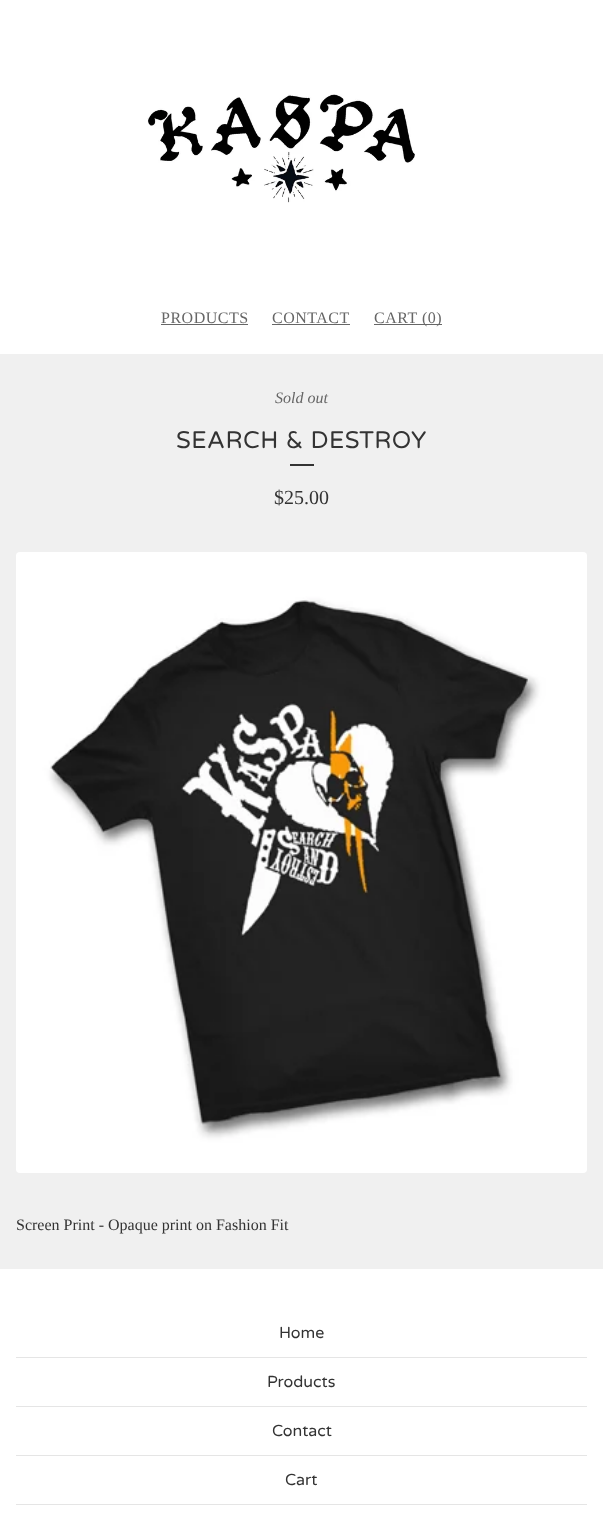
<?xml version="1.0" encoding="UTF-8"?>
<svg xmlns="http://www.w3.org/2000/svg" width="603" height="1520">
    <rect width="100%" height="100%" fill="#FFFFFF"/>
    <image x="147" y="94" width="268" height="109" href="img_01.png"/>
    <text x="161" y="323" font-family="Liberation Serif" font-size="16" letter-spacing="0.5" fill="#666666">PRODUCTS</text>
    <rect x="161" y="324" width="87" height="1" fill="#666666"/>
    <text x="272" y="323" font-family="Liberation Serif" font-size="16" letter-spacing="0.5" fill="#666666">CONTACT</text>
    <rect x="272" y="324" width="78" height="1" fill="#666666"/>
    <rect x="374" y="324" width="68" height="1" fill="#666666"/>
    <text x="374" y="323" font-family="Liberation Serif" font-size="16" letter-spacing="0.5" fill="#666666">CART (0)</text>
    <rect x="0" y="354" width="603" height="915" fill="#F0F0F0"/>
    <text x="275" y="403" font-family="Liberation Serif" font-size="16" font-style="italic" fill="#666666">Sold out</text>
    <text x="176" y="448" font-family="Varela Round" font-size="24" letter-spacing="0.5" fill="#333333">SEARCH &amp; DESTROY</text>
    <rect x="290" y="464" width="24" height="2" fill="#333333"/>
    <text x="274" y="504" font-family="Liberation Serif" font-size="20" fill="#333333">$25.00</text>
    <image x="16" y="552" width="571" height="621" href="img_02.png"/>
    <text x="16" y="1230" font-family="Liberation Serif" font-size="16" fill="#333333">Screen Print - Opaque print on Fashion Fit</text>
    <rect x="16" y="1357" width="571" height="1" fill="#E5E5E5"/>
    <text x="279" y="1338" font-family="Varela Round" font-size="16" fill="#333333">Home</text>
    <rect x="16" y="1406" width="571" height="1" fill="#E5E5E5"/>
    <text x="267" y="1387" font-family="Varela Round" font-size="16" fill="#333333">Products</text>
    <rect x="16" y="1455" width="571" height="1" fill="#E5E5E5"/>
    <text x="272" y="1436" font-family="Varela Round" font-size="16" fill="#333333">Contact</text>
    <rect x="16" y="1504" width="571" height="1" fill="#E5E5E5"/>
    <text x="285" y="1485" font-family="Varela Round" font-size="16" fill="#333333">Cart</text>
</svg>
